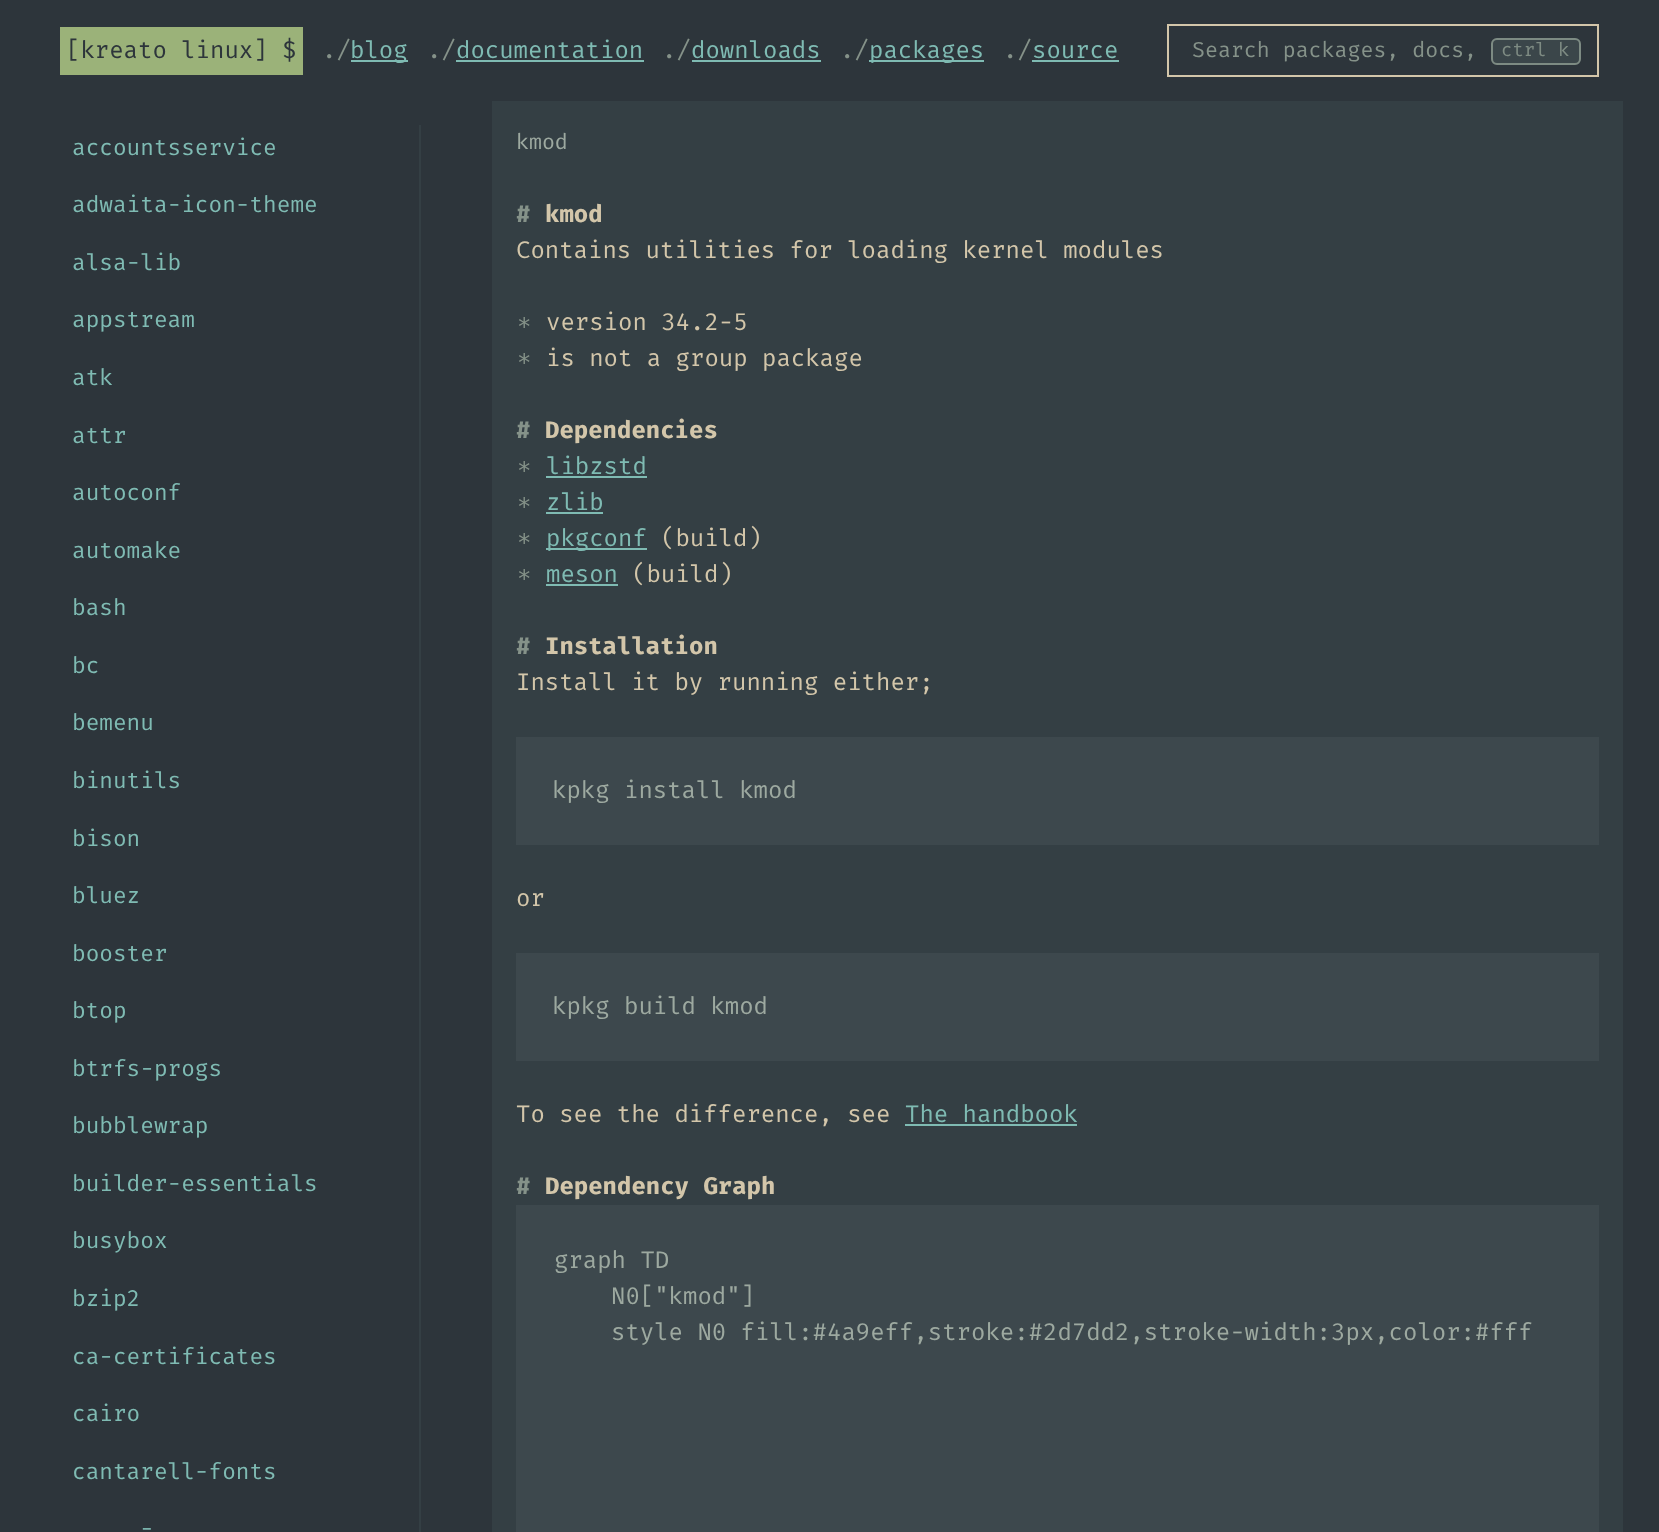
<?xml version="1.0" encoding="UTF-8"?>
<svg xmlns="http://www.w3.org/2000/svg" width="1659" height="1532">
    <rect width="100%" height="100%" fill="#2D353B"/>
    <rect x="60" y="27" width="243" height="48" fill="#9BB279"/>
    <text x="66" y="58" font-family="Fira Mono" font-size="24" fill="#2D353B">[kreato linux] $</text>
    <text x="322" y="58" font-family="Fira Mono" font-size="24" fill="#859289">./</text>
    <rect x="351" y="60" width="57" height="2" fill="#7FBBB3"/>
    <text x="350" y="58" font-family="Fira Mono" font-size="24" fill="#7FBBB3">blog</text>
    <text x="427" y="58" font-family="Fira Mono" font-size="24" fill="#859289">./</text>
    <text x="456" y="58" font-family="Fira Mono" font-size="24" fill="#7FBBB3">documentation</text>
    <rect x="456" y="60" width="188" height="2" fill="#7FBBB3"/>
    <text x="662" y="58" font-family="Fira Mono" font-size="24" fill="#859289">./</text>
    <text x="691" y="58" font-family="Fira Mono" font-size="24" fill="#7FBBB3">downloads</text>
    <rect x="692" y="60" width="129" height="2" fill="#7FBBB3"/>
    <text x="840" y="58" font-family="Fira Mono" font-size="24" fill="#859289">./</text>
    <rect x="869" y="60" width="115" height="2" fill="#7FBBB3"/>
    <text x="869" y="58" font-family="Fira Mono" font-size="24" fill="#7FBBB3">packages</text>
    <text x="1003" y="58" font-family="Fira Mono" font-size="24" fill="#859289">./</text>
    <text x="1032" y="58" font-family="Fira Mono" font-size="24" fill="#7FBBB3">source</text>
    <rect x="1032" y="60" width="87" height="2" fill="#7FBBB3"/>
    <rect x="1168" y="25" width="430" height="51" fill="none" stroke="#D3C6AA" stroke-width="2"/>
    <text x="1192" y="57" font-family="Fira Mono" font-size="21.6" fill="#859289">Search packages, docs,</text>
    <rect x="1491" y="38" width="90" height="27" rx="6" fill="#3D484D" fill-opacity="0.9"/>
    <rect x="1492" y="39" width="88" height="25" rx="5" fill="none" stroke="#859289" stroke-opacity="0.9" stroke-width="2"/>
    <text x="1501" y="56" font-family="Fira Mono" font-size="19" fill="#7E8B83">ctrl k</text>
    <rect x="419" y="125" width="2" height="1407" fill="#343F44"/>
    <text x="72" y="155" font-family="Fira Mono" font-size="22.75" fill="#7FBBB3">accountsservice</text>
    <text x="72" y="212" font-family="Fira Mono" font-size="22.75" fill="#7FBBB3">adwaita-icon-theme</text>
    <text x="72" y="270" font-family="Fira Mono" font-size="22.75" fill="#7FBBB3">alsa-lib</text>
    <text x="72" y="327" font-family="Fira Mono" font-size="22.75" fill="#7FBBB3">appstream</text>
    <text x="72" y="385" font-family="Fira Mono" font-size="22.75" fill="#7FBBB3">atk</text>
    <text x="72" y="443" font-family="Fira Mono" font-size="22.75" fill="#7FBBB3">attr</text>
    <text x="72" y="500" font-family="Fira Mono" font-size="22.75" fill="#7FBBB3">autoconf</text>
    <text x="72" y="558" font-family="Fira Mono" font-size="22.75" fill="#7FBBB3">automake</text>
    <text x="72" y="615" font-family="Fira Mono" font-size="22.75" fill="#7FBBB3">bash</text>
    <text x="72" y="673" font-family="Fira Mono" font-size="22.75" fill="#7FBBB3">bc</text>
    <text x="72" y="730" font-family="Fira Mono" font-size="22.75" fill="#7FBBB3">bemenu</text>
    <text x="72" y="788" font-family="Fira Mono" font-size="22.75" fill="#7FBBB3">binutils</text>
    <text x="72" y="846" font-family="Fira Mono" font-size="22.75" fill="#7FBBB3">bison</text>
    <text x="72" y="903" font-family="Fira Mono" font-size="22.75" fill="#7FBBB3">bluez</text>
    <text x="72" y="961" font-family="Fira Mono" font-size="22.75" fill="#7FBBB3">booster</text>
    <text x="72" y="1018" font-family="Fira Mono" font-size="22.75" fill="#7FBBB3">btop</text>
    <text x="72" y="1076" font-family="Fira Mono" font-size="22.75" fill="#7FBBB3">btrfs-progs</text>
    <text x="72" y="1133" font-family="Fira Mono" font-size="22.75" fill="#7FBBB3">bubblewrap</text>
    <text x="72" y="1191" font-family="Fira Mono" font-size="22.75" fill="#7FBBB3">builder-essentials</text>
    <text x="72" y="1248" font-family="Fira Mono" font-size="22.75" fill="#7FBBB3">busybox</text>
    <text x="72" y="1306" font-family="Fira Mono" font-size="22.75" fill="#7FBBB3">bzip2</text>
    <text x="72" y="1364" font-family="Fira Mono" font-size="22.75" fill="#7FBBB3">ca-certificates</text>
    <text x="72" y="1421" font-family="Fira Mono" font-size="22.75" fill="#7FBBB3">cairo</text>
    <text x="72" y="1479" font-family="Fira Mono" font-size="22.75" fill="#7FBBB3">cantarell-fonts</text>
    <text x="140" y="1536" font-family="Fira Mono" font-size="22.75" fill="#7FBBB3">-</text>
    <rect x="504" y="113" width="1107" height="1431" fill="none" stroke="#343F44" stroke-width="24"/>
    <rect x="516" y="125" width="1083" height="1080" fill="#343F44"/>
    <text x="516" y="149" font-family="Fira Mono" font-size="21.6" fill="#9DA9A0">kmod</text>
    <text x="516" y="222" font-family="Fira Mono" font-size="24" font-weight="700" fill="#859289">#</text>
    <text x="545" y="222" font-family="Fira Mono" font-size="24" font-weight="700" fill="#D3C6AA">kmod</text>
    <text x="516" y="258" font-family="Fira Mono" font-size="24" fill="#D3C6AA">Contains utilities for loading kernel modules</text>
    <text x="517" y="330" font-family="DejaVu Sans Mono" font-size="24" fill="#859289">∗</text>
    <text x="546" y="330" font-family="Fira Mono" font-size="24" fill="#D3C6AA">version 34.2-5</text>
    <text x="517" y="366" font-family="DejaVu Sans Mono" font-size="24" fill="#859289">∗</text>
    <text x="546" y="366" font-family="Fira Mono" font-size="24" fill="#D3C6AA">is not a group package</text>
    <text x="516" y="438" font-family="Fira Mono" font-size="24" font-weight="700" fill="#859289">#</text>
    <text x="545" y="438" font-family="Fira Mono" font-size="24" font-weight="700" fill="#D3C6AA">Dependencies</text>
    <text x="517" y="474" font-family="DejaVu Sans Mono" font-size="24" fill="#859289">∗</text>
    <text x="546" y="474" font-family="Fira Mono" font-size="24" fill="#7FBBB3">libzstd</text>
    <rect x="546" y="476" width="101" height="2" fill="#7FBBB3"/>
    <text x="517" y="510" font-family="DejaVu Sans Mono" font-size="24" fill="#859289">∗</text>
    <text x="546" y="510" font-family="Fira Mono" font-size="24" fill="#7FBBB3">zlib</text>
    <rect x="546" y="512" width="57" height="2" fill="#7FBBB3"/>
    <text x="517" y="546" font-family="DejaVu Sans Mono" font-size="24" fill="#859289">∗</text>
    <rect x="546" y="548" width="101" height="2" fill="#7FBBB3"/>
    <text x="546" y="546" font-family="Fira Mono" font-size="24" fill="#7FBBB3">pkgconf</text>
    <text x="661" y="546" font-family="Fira Mono" font-size="24" fill="#D3C6AA">(build)</text>
    <text x="517" y="582" font-family="DejaVu Sans Mono" font-size="24" fill="#859289">∗</text>
    <text x="546" y="582" font-family="Fira Mono" font-size="24" fill="#7FBBB3">meson</text>
    <rect x="546" y="584" width="72" height="2" fill="#7FBBB3"/>
    <text x="632" y="582" font-family="Fira Mono" font-size="24" fill="#D3C6AA">(build)</text>
    <text x="516" y="654" font-family="Fira Mono" font-size="24" font-weight="700" fill="#859289">#</text>
    <text x="545" y="654" font-family="Fira Mono" font-size="24" font-weight="700" fill="#D3C6AA">Installation</text>
    <text x="516" y="690" font-family="Fira Mono" font-size="24" fill="#D3C6AA">Install it by running either;</text>
    <rect x="516" y="737" width="1083" height="108" fill="#3D484D"/>
    <text x="552" y="798" font-family="Fira Mono" font-size="24" fill="#9DA9A0">kpkg install kmod</text>
    <text x="516" y="906" font-family="Fira Mono" font-size="24" fill="#D3C6AA">or</text>
    <rect x="516" y="953" width="1083" height="108" fill="#3D484D"/>
    <text x="552" y="1014" font-family="Fira Mono" font-size="24" fill="#9DA9A0">kpkg build kmod</text>
    <text x="516" y="1122" font-family="Fira Mono" font-size="24" fill="#D3C6AA">To see the difference, see</text>
    <text x="905" y="1122" font-family="Fira Mono" font-size="24" fill="#7FBBB3">The handbook</text>
    <rect x="905" y="1124" width="172" height="2" fill="#7FBBB3"/>
    <text x="516" y="1194" font-family="Fira Mono" font-size="24" font-weight="700" fill="#859289">#</text>
    <text x="545" y="1194" font-family="Fira Mono" font-size="24" font-weight="700" fill="#D3C6AA">Dependency Graph</text>
    <rect x="516" y="1205" width="1083" height="327" fill="#3D484D"/>
    <text x="554" y="1268" font-family="Fira Mono" font-size="24" fill="#9DA9A0">graph TD</text>
    <text font-family="Fira Mono" font-size="24" fill="#9DA9A0">
        <tspan x="611" y="1304">N0["kmod"]</tspan>
        <tspan x="611" y="1340">style N0 fill:#4a9eff,stroke:#2d7dd2,stroke-width:3px,color:#fff</tspan>
    </text>
</svg>
